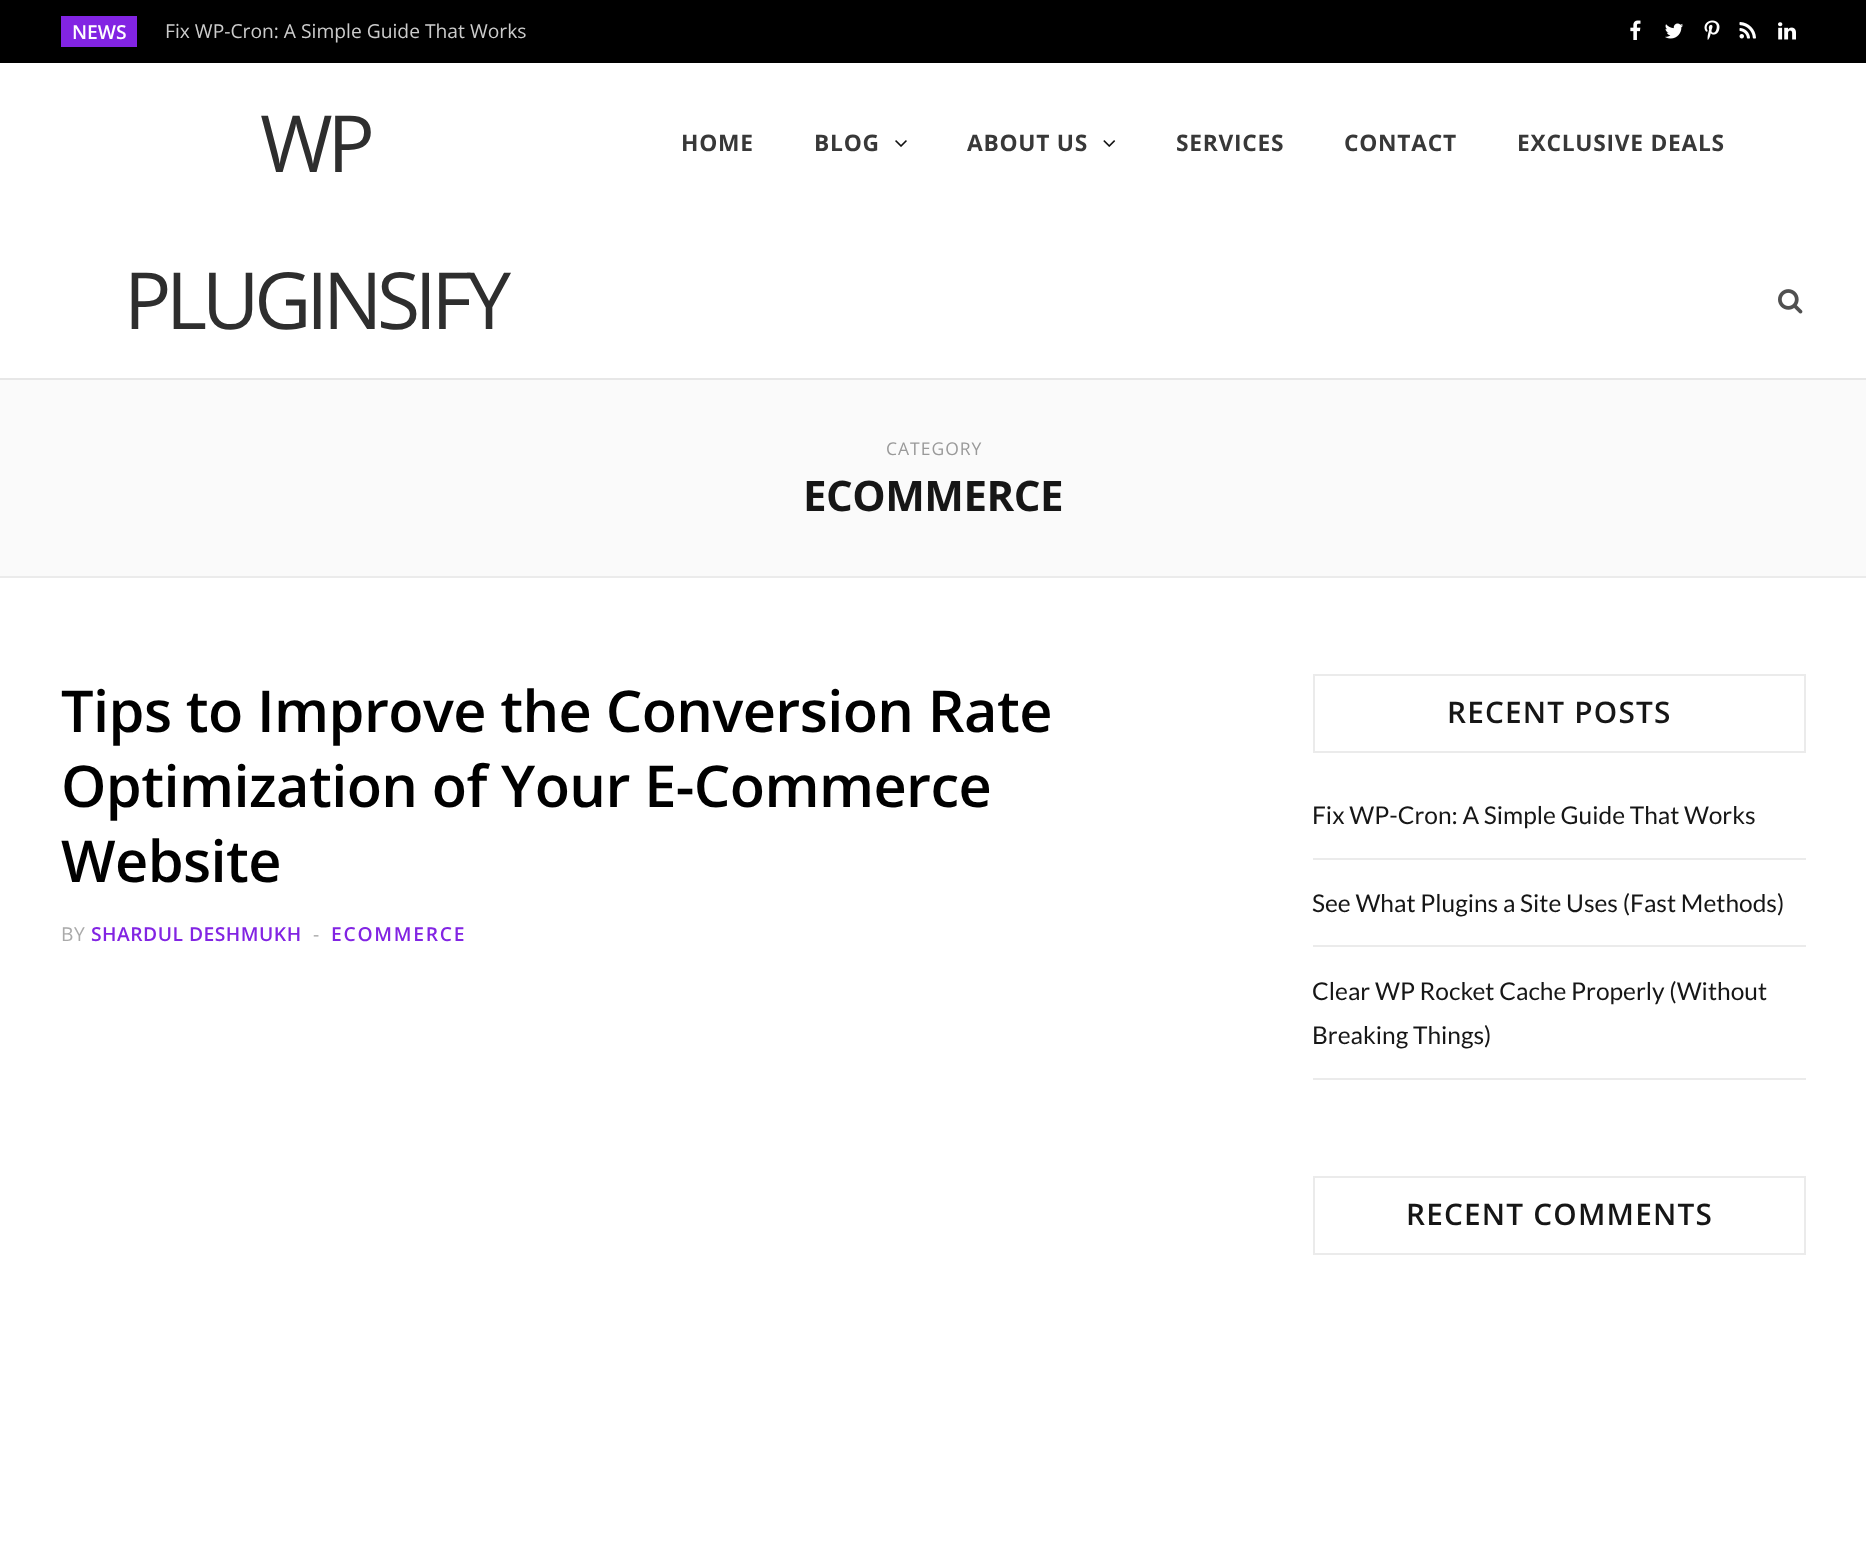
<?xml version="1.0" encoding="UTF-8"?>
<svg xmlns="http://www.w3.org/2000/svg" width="1866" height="1548">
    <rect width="100%" height="100%" fill="#FFFFFF"/>
    <rect x="0" y="378" width="1866" height="2" fill="#E7E7E7"/>
    <rect x="0" y="0" width="1866" height="63" fill="#000000"/>
    <rect x="61" y="16" width="76" height="31" fill="#8224E3"/>
    <text x="72" y="39" font-family="Open Sans" font-size="19.25" font-weight="600" fill="#FFFFFF">NEWS</text>
    <text x="165" y="38" font-family="Open Sans" font-size="19.25" fill="#CCCCCC">Fix WP-Cron: A Simple Guide That Works</text>
    <image x="1630" y="20" width="11" height="20" href="img_01.png"/>
    <image x="1665" y="23" width="19" height="16" href="img_02.png"/>
    <image x="1704" y="20" width="16" height="20" href="img_03.png"/>
    <image x="1739" y="22" width="17" height="17" href="img_04.png"/>
    <image x="1778" y="22" width="18" height="18" href="img_05.png"/>
    <text x="260" y="172" font-family="Open Sans" font-size="78.75" letter-spacing="-5.25" fill="#2E2E2E">WP</text>
    <text x="124" y="329" font-family="Open Sans" font-size="78.75" letter-spacing="-5.25" fill="#2E2E2E">PLUGINSIFY</text>
    <text x="681" y="151" font-family="Open Sans" font-size="22.75" font-weight="700" letter-spacing="0.75" fill="#383838">HOME</text>
    <text x="814" y="151" font-family="Open Sans" font-size="22.75" font-weight="700" letter-spacing="0.75" fill="#383838">BLOG</text>
    <image x="895" y="140" width="12" height="7" href="img_06.png"/>
    <text x="967" y="151" font-family="Open Sans" font-size="22.75" font-weight="700" letter-spacing="0.75" fill="#383838">ABOUT US</text>
    <image x="1103" y="140" width="13" height="7" href="img_07.png"/>
    <text x="1176" y="151" font-family="Open Sans" font-size="22.75" font-weight="700" letter-spacing="0.75" fill="#383838">SERVICES</text>
    <text x="1344" y="151" font-family="Open Sans" font-size="22.75" font-weight="700" letter-spacing="0.75" fill="#383838">CONTACT</text>
    <text x="1517" y="151" font-family="Open Sans" font-size="22.75" font-weight="700" letter-spacing="0.75" fill="#383838">EXCLUSIVE DEALS</text>
    <image x="1778" y="289" width="25" height="25" href="img_08.png"/>
    <rect x="0" y="380" width="1866" height="196" fill="#FAFAFA"/>
    <rect x="0" y="576" width="1866" height="2" fill="#EBEBEB"/>
    <text x="886" y="455" font-family="Open Sans" font-size="17.5" letter-spacing="1" fill="#999999">CATEGORY</text>
    <text x="803" y="511" font-family="Open Sans" font-size="42" font-weight="700" letter-spacing="-0.5" fill="#161616">ECOMMERCE</text>
    <text font-family="Open Sans" font-size="57.75" font-weight="600" letter-spacing="-0.6" fill="#000000">
        <tspan x="61" y="732">Tips to Improve the Conversion Rate</tspan>
        <tspan x="61" y="807">Optimization of Your E-Commerce</tspan>
        <tspan x="61" y="882">Website</tspan>
    </text>
    <text x="61" y="941" font-family="Open Sans" font-size="19.25" letter-spacing="0.5" fill="#AAAAAA">BY</text>
    <text x="91" y="941" font-family="Open Sans" font-size="19.25" font-weight="600" letter-spacing="0.5" fill="#8224E3">SHARDUL DESHMUKH</text>
    <text x="313" y="941" font-family="Open Sans" font-size="19.25" fill="#AAAAAA">-</text>
    <text x="331" y="941" font-family="Open Sans" font-size="19.25" font-weight="600" letter-spacing="1.75" fill="#8224E3">ECOMMERCE</text>
    <rect x="1314" y="675" width="491" height="77" fill="none" stroke="#EBEBEB" stroke-width="2"/>
    <text x="1447" y="723" font-family="Open Sans" font-size="29.75" font-weight="600" letter-spacing="1.2" fill="#161616">RECENT POSTS</text>
    <rect x="1313" y="858" width="493" height="2" fill="#EBEBEB"/>
    <text x="1312" y="824" font-family="Lato" font-size="24.5" fill="#161616">Fix WP-Cron: A Simple Guide That Works</text>
    <rect x="1313" y="945" width="493" height="2" fill="#EBEBEB"/>
    <text x="1312" y="912" font-family="Lato" font-size="24.5" fill="#161616">See What Plugins a Site Uses (Fast Methods)</text>
    <rect x="1313" y="1078" width="493" height="2" fill="#EBEBEB"/>
    <text font-family="Lato" font-size="24.5" fill="#161616">
        <tspan x="1312" y="1000">Clear WP Rocket Cache Properly (Without</tspan>
        <tspan x="1312" y="1044">Breaking Things)</tspan>
    </text>
    <rect x="1314" y="1177" width="491" height="77" fill="none" stroke="#EBEBEB" stroke-width="2"/>
    <text x="1406" y="1225" font-family="Open Sans" font-size="29.75" font-weight="600" letter-spacing="1.2" fill="#161616">RECENT COMMENTS</text>
</svg>
